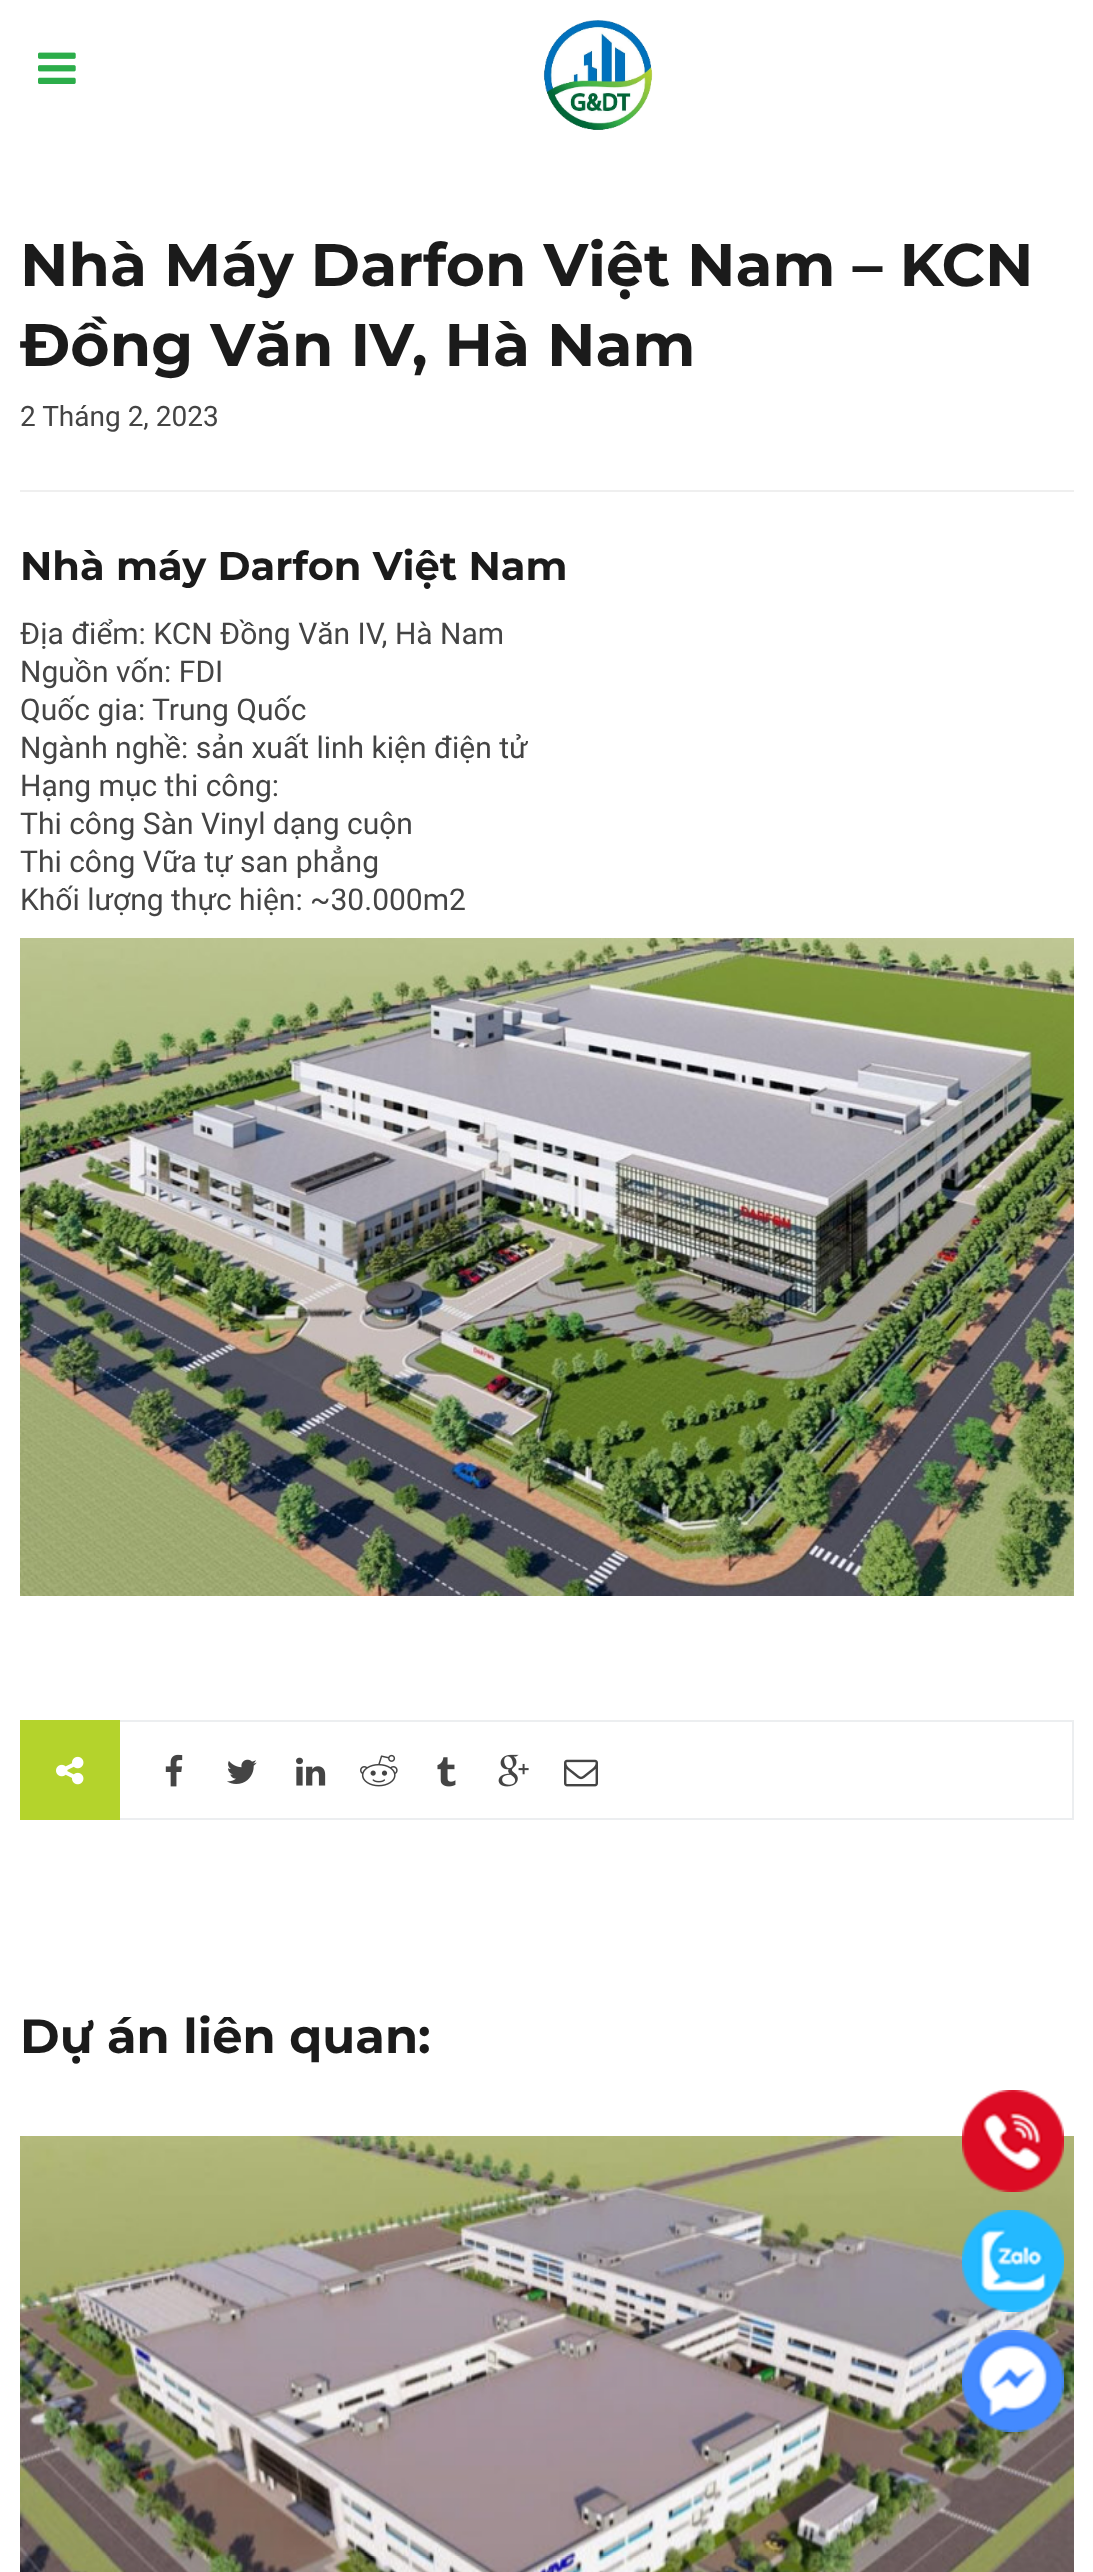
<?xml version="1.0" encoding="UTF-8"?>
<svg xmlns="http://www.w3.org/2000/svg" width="1093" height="2572">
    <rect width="100%" height="100%" fill="#FFFFFF"/>
    <image x="38" y="52" width="38" height="32" href="img_01.png"/>
    <image x="543" y="20" width="110" height="110" href="img_02.png"/>
    <image x="20" y="2136" width="1054" height="436" href="img_15.png"/>
    <image x="962" y="2090" width="102" height="102" href="img_03.png"/>
    <image x="962" y="2210" width="102" height="102" href="img_04.png"/>
    <image x="962" y="2330" width="102" height="102" href="img_05.png"/>
    <text font-family="Montserrat" font-size="60" font-weight="100" fill="#1B1B1B">
        <tspan x="20" y="286">Nhà Máy Darfon Việt Nam – KCN</tspan>
        <tspan x="20" y="366">Đồng Văn IV, Hà Nam</tspan>
    </text>
    <rect x="20" y="490" width="1054" height="2" fill="#EFEFEF"/>
    <text x="20" y="426" font-family="Roboto" font-size="28" fill="#444444">2 Tháng 2, 2023</text>
    <text x="20" y="580" font-family="Montserrat" font-size="40" font-weight="100" fill="#1B1B1B">Nhà máy Darfon Việt Nam</text>
    <text font-family="Roboto" font-size="30" fill="#444444">
        <tspan x="20" y="644">Địa điểm: KCN Đồng Văn IV, Hà Nam</tspan>
        <tspan x="20" y="682">Nguồn vốn: FDI</tspan>
        <tspan x="20" y="720">Quốc gia: Trung Quốc</tspan>
        <tspan x="20" y="758">Ngành nghề: sản xuất linh kiện điện tử</tspan>
        <tspan x="20" y="796">Hạng mục thi công:</tspan>
        <tspan x="20" y="834">Thi công Sàn Vinyl dạng cuộn</tspan>
        <tspan x="20" y="872">Thi công Vữa tự san phẳng</tspan>
        <tspan x="20" y="910">Khối lượng thực hiện: ~30.000m2</tspan>
    </text>
    <image x="20" y="938" width="1054" height="658" href="img_06.png"/>
    <rect x="20" y="1720" width="100" height="100" fill="#B4D32C"/>
    <image x="56" y="1756" width="28" height="29" href="img_07.png"/>
    <rect x="120" y="1720" width="954" height="2" fill="#ECEEF0"/>
    <rect x="1072" y="1720" width="2" height="100" fill="#ECEEF0"/>
    <rect x="120" y="1818" width="954" height="2" fill="#ECEEF0"/>
    <image x="165" y="1754" width="18" height="33" href="img_08.png"/>
    <image x="227" y="1759" width="30" height="25" href="img_09.png"/>
    <image x="296" y="1757" width="30" height="29" href="img_10.png"/>
    <image x="360" y="1754" width="38" height="33" href="img_11.png"/>
    <image x="437" y="1757" width="19" height="30" href="img_12.png"/>
    <image x="498" y="1754" width="31" height="33" href="img_13.png"/>
    <image x="564" y="1759" width="34" height="28" href="img_14.png"/>
    <text x="20" y="2053" font-family="Montserrat" font-size="48" font-weight="100" fill="#1B1B1B">Dự án liên quan:</text>
</svg>
